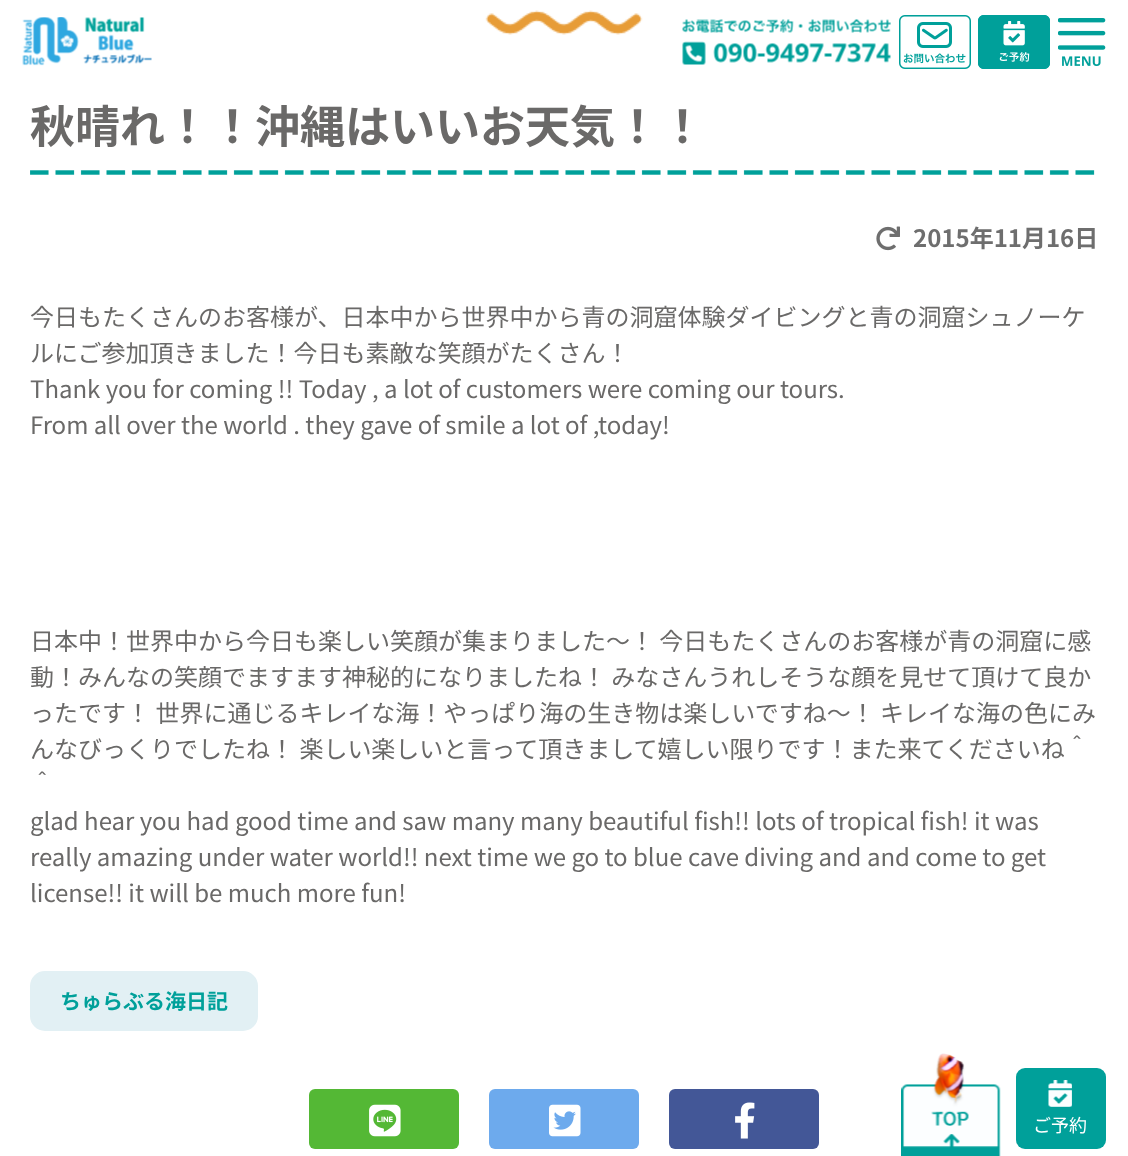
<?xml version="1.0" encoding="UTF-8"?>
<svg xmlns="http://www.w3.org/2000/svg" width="1128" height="1156">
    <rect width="100%" height="100%" fill="#FFFFFF"/>
    <image x="22" y="17" width="130" height="49" href="img_01.png"/>
    <image x="682" y="19" width="209" height="46" href="img_02.png"/>
    <image x="899" y="15" width="72" height="54" href="img_03.png"/>
    <image x="978" y="15" width="72" height="54" href="img_04.png"/>
    <image x="1058" y="18" width="48" height="48" href="img_05.png"/>
    <image x="485" y="10" width="158" height="25" href="img_06.png"/>
    <text x="30" y="143" font-family="Noto Sans JP" font-size="45" font-weight="700" fill="#6A6968">秋晴れ！！沖縄はいいお天気！！</text>
    <image x="30" y="170" width="1065" height="5" href="img_07.png"/>
    <image x="876" y="226" width="24" height="25" href="img_08.png"/>
    <text x="913" y="247" font-family="Noto Sans JP" font-size="24" font-weight="700" fill="#6E6E6E">2015年11月16日</text>
    <text font-family="Noto Sans JP" font-size="24" fill="#6A6968">
        <tspan x="30" y="326">今日もたくさんのお客様が、日本中から世界中から青の洞窟体験ダイビングと青の洞窟シュノーケ</tspan>
        <tspan x="30" y="362">ルにご参加頂きました！今日も素敵な笑顔がたくさん！</tspan>
        <tspan x="30" y="398">Thank you for coming !! Today , a lot of customers were coming our tours.</tspan>
        <tspan x="30" y="434">From all over the world . they gave of smile a lot of ,today!</tspan>
    </text>
    <text font-family="Noto Sans JP" font-size="24" fill="#6A6968">
        <tspan x="30" y="650">日本中！世界中から今日も楽しい笑顔が集まりました～！ 今日もたくさんのお客様が青の洞窟に感</tspan>
        <tspan x="30" y="686">動！みんなの笑顔でますます神秘的になりましたね！ みなさんうれしそうな顔を見せて頂けて良か</tspan>
        <tspan x="30" y="722">ったです！ 世界に通じるキレイな海！やっぱり海の生き物は楽しいですね～！ キレイな海の色にみ</tspan>
        <tspan x="30" y="758">んなびっくりでしたね！ 楽しい楽しいと言って頂きまして嬉しい限りです！また来てくださいね＾</tspan>
        <tspan x="30" y="794">＾</tspan>
        <tspan x="30" y="830">glad hear you had good time and saw many many beautiful fish!! lots of tropical fish! it was</tspan>
        <tspan x="30" y="866">really amazing under water world!! next time we go to blue cave diving and and come to get</tspan>
        <tspan x="30" y="902">license!! it will be much more fun!</tspan>
    </text>
    <rect x="31.5" y="972.5" width="225" height="57" rx="13.5" fill="#E2F0F4" stroke="#E2F0F4" stroke-width="3"/>
    <text x="60" y="1009" font-family="Noto Sans JP" font-size="21" font-weight="700" fill="#00A09A">ちゅらぶる海日記</text>
    <rect x="309" y="1089" width="150" height="60" rx="6" fill="#54B835"/>
    <image x="369" y="1104" width="32" height="33" href="img_09.png"/>
    <rect x="489" y="1089" width="150" height="60" rx="6" fill="#6DAAED"/>
    <image x="549" y="1104" width="32" height="33" href="img_10.png"/>
    <rect x="669" y="1089" width="150" height="60" rx="6" fill="#435797"/>
    <image x="735" y="1102" width="20" height="37" href="img_11.png"/>
    <image x="901" y="1053" width="100" height="103" href="img_12.png"/>
    <rect x="1016" y="1068" width="90" height="81" rx="9" fill="#00A09A"/>
    <image x="1048" y="1080" width="24" height="27" href="img_13.png"/>
    <text x="1033" y="1132" font-family="Noto Sans JP" font-size="18" fill="#FFFFFF">ご予約</text>
</svg>
